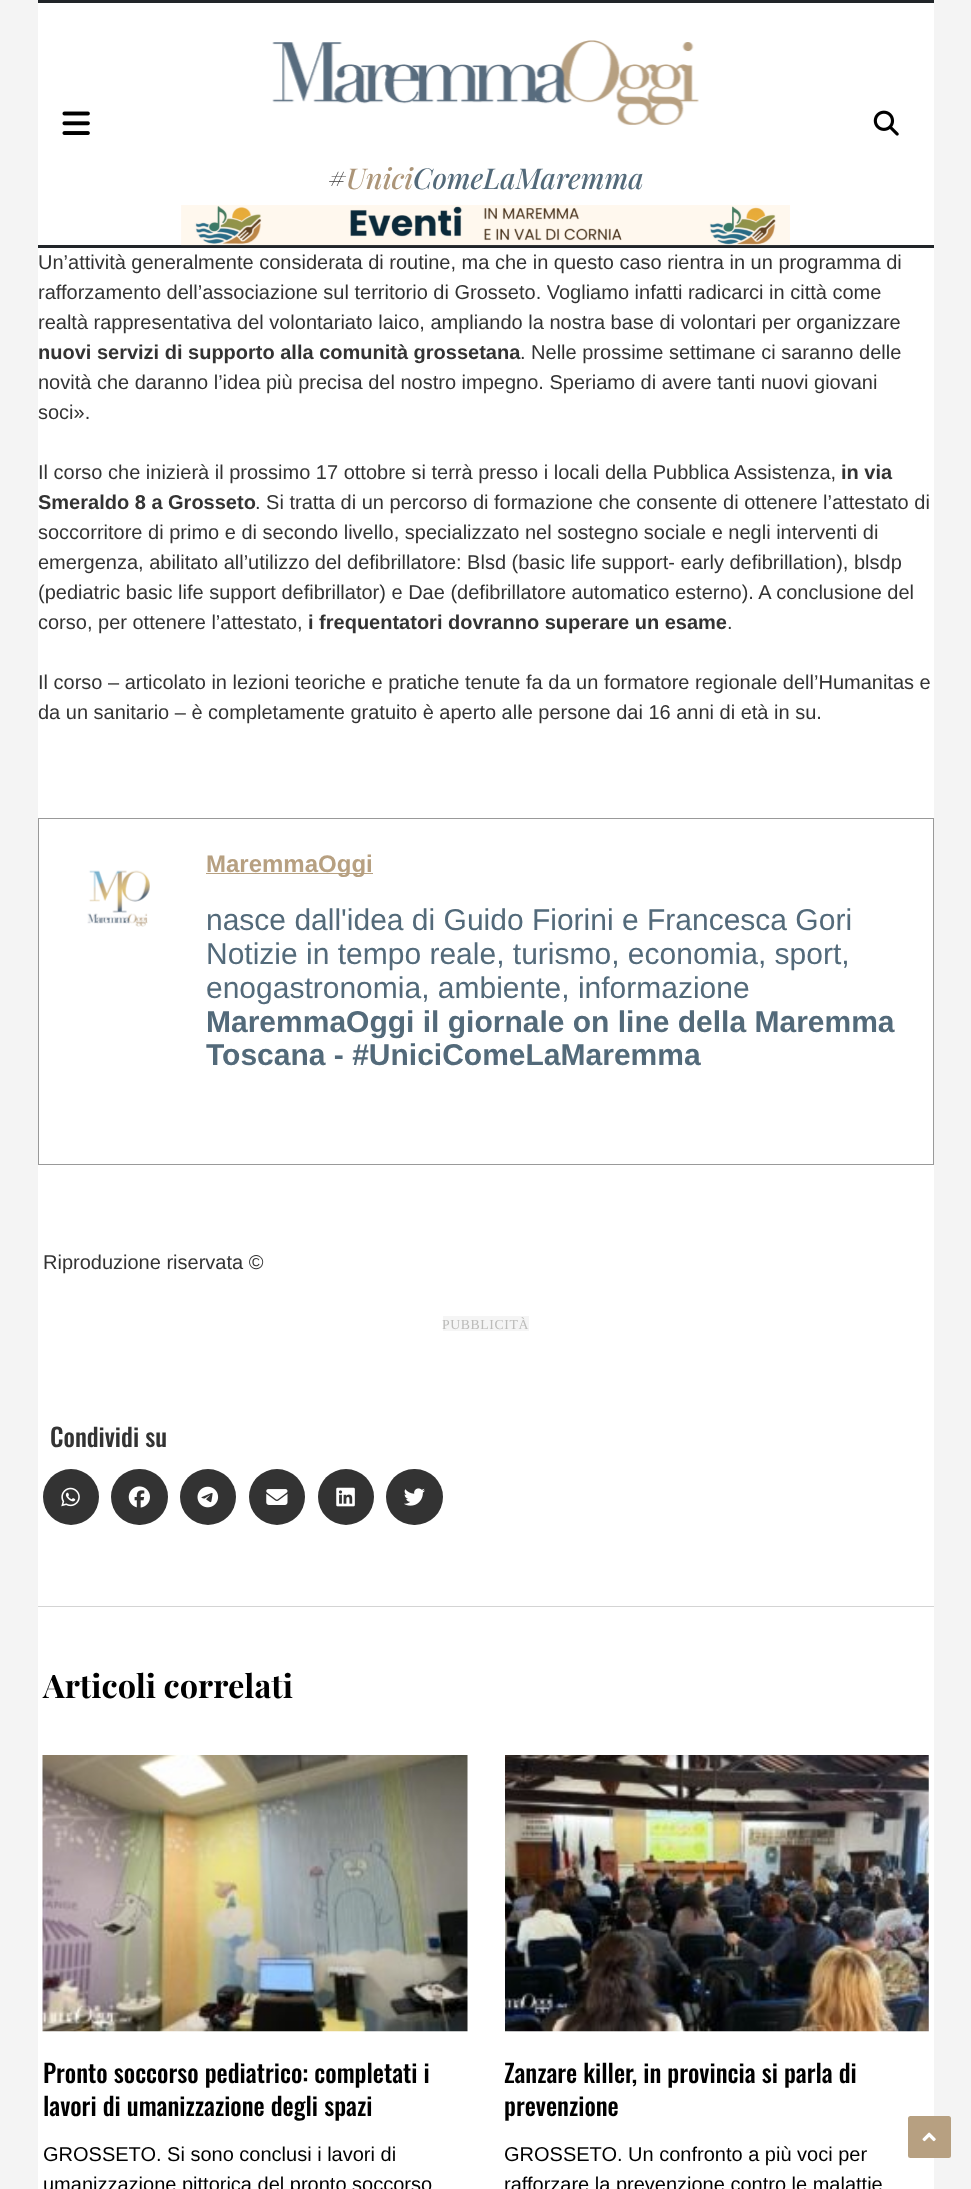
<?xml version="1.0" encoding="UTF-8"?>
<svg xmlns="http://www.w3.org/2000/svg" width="971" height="2189">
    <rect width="100%" height="100%" fill="#F4F4F4"/>
    <rect x="38" y="3" width="896" height="242" fill="#FFFFFF"/>
    <rect x="38" y="0" width="896" height="3" fill="#212529"/>
    <rect x="38" y="245" width="896" height="3" fill="#212529"/>
    <image x="62" y="111" width="28" height="24" href="img_01.png"/>
    <image x="873" y="110" width="26" height="26" href="img_02.png"/>
    <image x="272" y="40" width="427" height="85" href="img_03.png"/>
    <text x="328" y="189" font-family="Playfair Display" font-size="28.75" font-weight="500" font-style="italic" fill="#3E3D3D">#</text>
    <text x="346" y="189" font-family="Playfair Display" font-size="28.75" font-weight="500" font-style="italic" fill="#AC9578">Unici</text>
    <text x="413" y="189" font-family="Playfair Display" font-size="28.75" font-weight="500" font-style="italic" fill="#536A7A">ComeLaMaremma</text>
    <image x="181" y="205" width="609" height="41" href="img_04.png"/>
    <rect x="38" y="248" width="896" height="1941" fill="#FFFFFF"/>
    <text font-family="Liberation Sans" font-size="20" fill="#333333">
        <tspan x="38" y="269">Un’attività generalmente considerata di routine, ma che in questo caso rientra in un programma di</tspan>
        <tspan x="38" y="299">rafforzamento dell’associazione sul territorio di Grosseto. Vogliamo infatti radicarci in città come</tspan>
        <tspan x="38" y="329">realtà rappresentativa del volontariato laico, ampliando la nostra base di volontari per organizzare</tspan>
    </text>
    <text x="38" y="359" font-family="Liberation Sans" font-size="20" font-weight="700" fill="#333333">nuovi servizi di supporto alla comunità grossetana</text>
    <text x="520" y="359" font-family="Liberation Sans" font-size="20" fill="#333333">. Nelle prossime settimane ci saranno delle</text>
    <text font-family="Liberation Sans" font-size="20" fill="#333333">
        <tspan x="38" y="389">novità che daranno l’idea più precisa del nostro impegno. Speriamo di avere tanti nuovi giovani</tspan>
        <tspan x="38" y="419">soci».</tspan>
    </text>
    <text x="38" y="479" font-family="Liberation Sans" font-size="20" fill="#333333">Il corso che inizierà il prossimo 17 ottobre si terrà presso i locali della Pubblica Assistenza,</text>
    <text x="841" y="479" font-family="Liberation Sans" font-size="20" font-weight="700" fill="#333333">in via</text>
    <text x="38" y="509" font-family="Liberation Sans" font-size="20" font-weight="700" fill="#333333">Smeraldo 8 a Grosseto</text>
    <text x="255" y="509" font-family="Liberation Sans" font-size="20" fill="#333333">. Si tratta di un percorso di formazione che consente di ottenere l’attestato di</text>
    <text font-family="Liberation Sans" font-size="20" fill="#333333">
        <tspan x="38" y="539">soccorritore di primo e di secondo livello, specializzato nel sostegno sociale e negli interventi di</tspan>
        <tspan x="38" y="569">emergenza, abilitato all’utilizzo del defibrillatore: Blsd (basic life support- early defibrillation), blsdp</tspan>
        <tspan x="38" y="599">(pediatric basic life support defibrillator) e Dae (defibrillatore automatico esterno). A conclusione del</tspan>
        <tspan x="38" y="629">corso, per ottenere l’attestato,</tspan>
    </text>
    <text x="308" y="629" font-family="Liberation Sans" font-size="20" font-weight="700" fill="#333333">i frequentatori dovranno superare un esame</text>
    <text x="727" y="629" font-family="Liberation Sans" font-size="20" fill="#333333">.</text>
    <text font-family="Liberation Sans" font-size="20" fill="#333333">
        <tspan x="38" y="689">Il corso – articolato in lezioni teoriche e pratiche tenute fa da un formatore regionale dell’Humanitas e</tspan>
        <tspan x="38" y="719">da un sanitario – è completamente gratuito è aperto alle persone dai 16 anni di età in su.</tspan>
    </text>
    <rect x="38.5" y="818.5" width="895" height="346" fill="none" stroke="#999999"/>
    <image x="87" y="870" width="63" height="57" href="img_05.png"/>
    <rect x="206" y="873" width="167" height="1" fill="#B7A081"/>
    <text x="206" y="872" font-family="Liberation Sans" font-size="24" font-weight="700" fill="#B7A081">MaremmaOggi</text>
    <text font-family="Liberation Sans" font-size="30" fill="#536A7A">
        <tspan x="206" y="930">nasce dall'idea di Guido Fiorini e Francesca Gori</tspan>
        <tspan x="206" y="964">Notizie in tempo reale, turismo, economia, sport,</tspan>
        <tspan x="206" y="998">enogastronomia, ambiente, informazione</tspan>
    </text>
    <text font-family="Liberation Sans" font-size="30" font-weight="700" fill="#536A7A">
        <tspan x="206" y="1032">MaremmaOggi il giornale on line della Maremma</tspan>
        <tspan x="206" y="1065">Toscana - #UniciComeLaMaremma</tspan>
    </text>
    <text x="43" y="1269" font-family="Liberation Sans" font-size="20" fill="#333333">Riproduzione riservata ©</text>
    <rect x="443" y="1316" width="86" height="15" fill="#F5F5F5"/>
    <text x="442" y="1329" font-family="Liberation Serif" font-size="13.75" letter-spacing="0.6" fill="#BBBBB9">PUBBLICITÀ</text>
    <text x="50" y="1447" font-family="Oswald" font-size="25" font-weight="500" fill="#333333">Condividi su</text>
    <circle cx="71" cy="1497" r="28" fill="#333333"/>
    <image x="61" y="1487" width="19" height="20" href="img_06.png"/>
    <rect x="111" y="1469" width="57" height="56" rx="28" fill="#333333"/>
    <image x="128" y="1486" width="22" height="22" href="img_07.png"/>
    <circle cx="208" cy="1497" r="28" fill="#333333"/>
    <image x="197" y="1486" width="22" height="22" href="img_08.png"/>
    <circle cx="277" cy="1497" r="28" fill="#333333"/>
    <image x="266" y="1489" width="22" height="16" href="img_09.png"/>
    <circle cx="346" cy="1497" r="28" fill="#333333"/>
    <image x="336" y="1487" width="19" height="20" href="img_10.png"/>
    <rect x="386" y="1469" width="57" height="56" rx="28" fill="#333333"/>
    <image x="404" y="1488" width="21" height="18" href="img_11.png"/>
    <rect x="38" y="1606" width="896" height="1" fill="#D4D4D4"/>
    <text x="43" y="1698" font-family="Playfair Display" font-size="32.5" font-weight="700" fill="#000000">Articoli correlati</text>
    <image x="42" y="1755" width="426" height="277" href="img_12.png"/>
    <text font-family="Oswald" font-size="25" font-weight="500" fill="#000000">
        <tspan x="43" y="2083">Pronto soccorso pediatrico: completati i</tspan>
        <tspan x="43" y="2116">lavori di umanizzazione degli spazi</tspan>
    </text>
    <text font-family="Liberation Sans" font-size="20" fill="#000000">
        <tspan x="43" y="2161">GROSSETO. Si sono conclusi i lavori di</tspan>
        <tspan x="43" y="2191">umanizzazione pittorica del pronto soccorso</tspan>
    </text>
    <image x="505" y="1755" width="424" height="277" href="img_13.png"/>
    <text font-family="Oswald" font-size="25" font-weight="500" fill="#000000">
        <tspan x="504" y="2083">Zanzare killer, in provincia si parla di</tspan>
        <tspan x="504" y="2116">prevenzione</tspan>
    </text>
    <text font-family="Liberation Sans" font-size="20" fill="#000000">
        <tspan x="504" y="2161">GROSSETO. Un confronto a più voci per</tspan>
        <tspan x="504" y="2191">rafforzare la prevenzione contro le malattie</tspan>
    </text>
    <rect x="908" y="2116" width="43" height="42" rx="2.5" fill="#B7A081"/>
    <image x="922" y="2132" width="14" height="10" href="img_14.png"/>
</svg>
